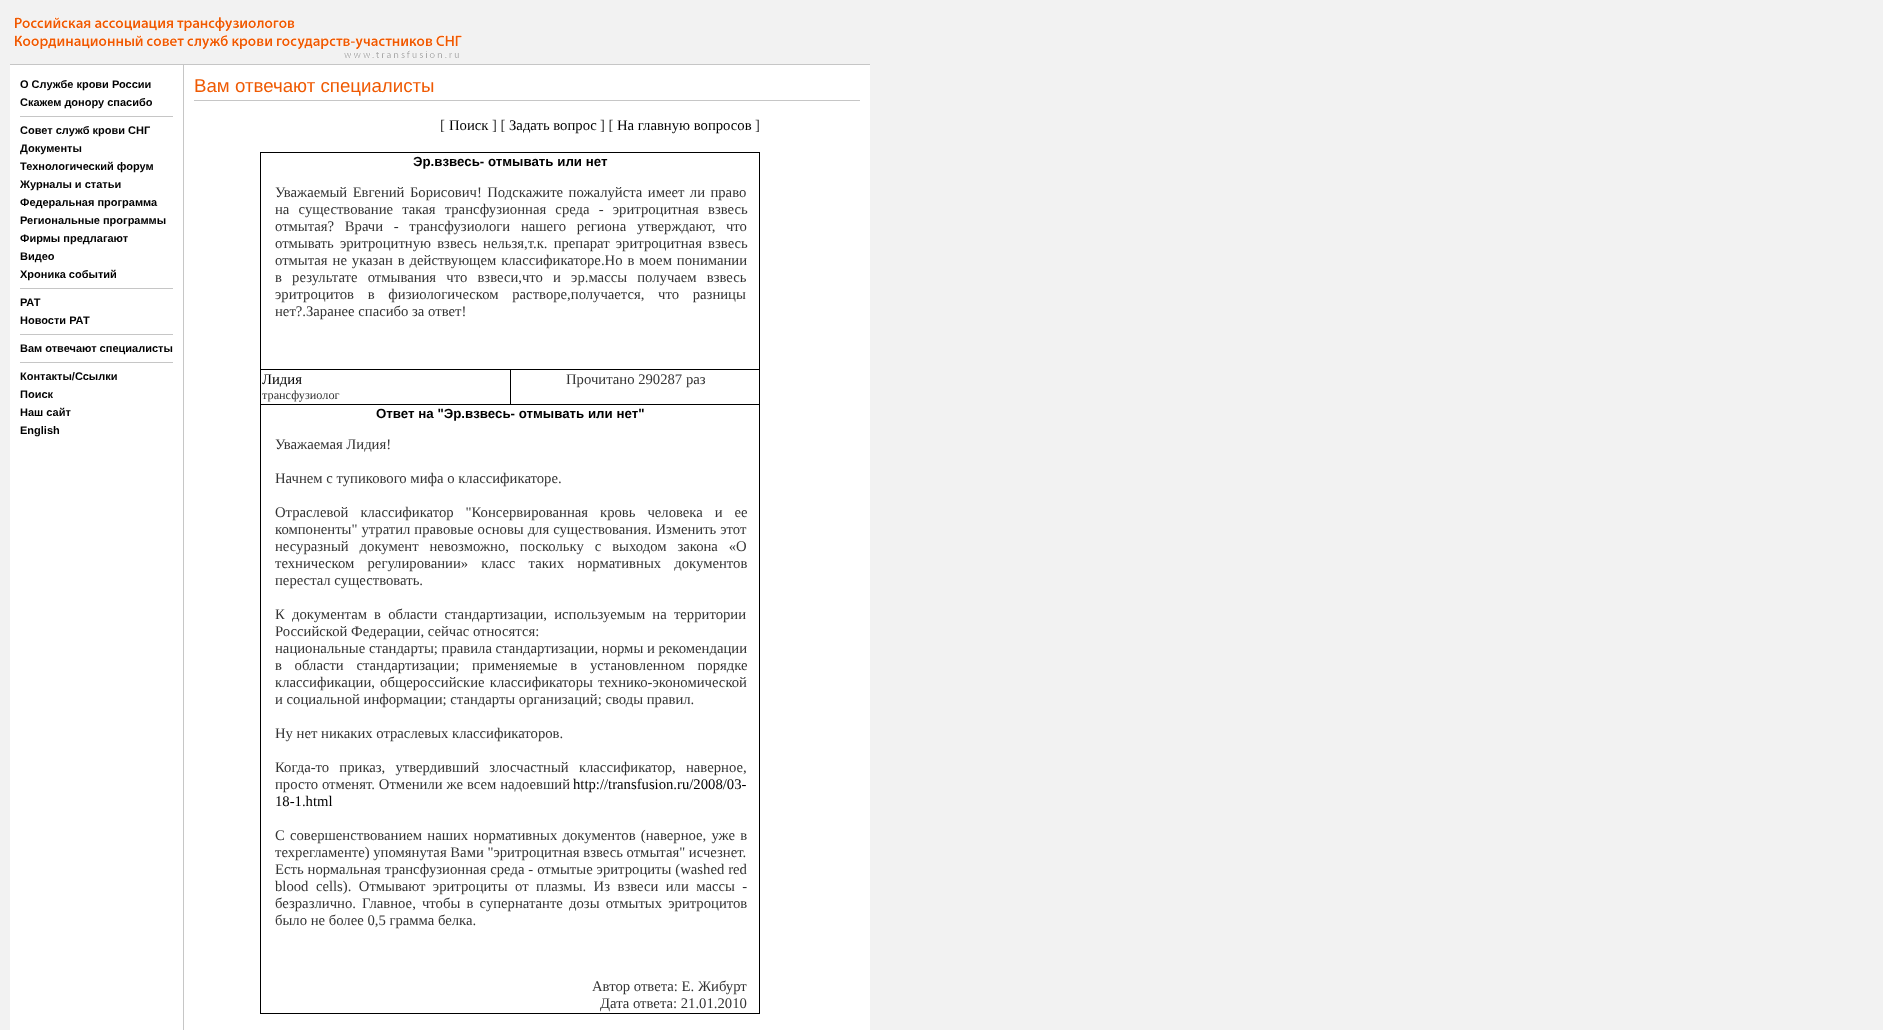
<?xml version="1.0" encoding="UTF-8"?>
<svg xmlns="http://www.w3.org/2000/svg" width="1883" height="1030">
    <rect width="100%" height="100%" fill="#F2F2F2"/>
    <rect x="10" y="65" width="860" height="965" fill="#FFFFFF"/>
    <image x="15" y="17" width="447" height="41" href="img_01.png"/>
    <rect x="10" y="64" width="860" height="1" fill="#C6C6C6"/>
    <rect x="183" y="65" width="1" height="965" fill="#C6C6C6"/>
    <text font-family="Liberation Sans" font-size="11" font-weight="700" fill="#000000">
        <tspan x="20" y="88">О Службе крови России</tspan>
        <tspan x="20" y="106">Скажем донору спасибо</tspan>
    </text>
    <rect x="20" y="116" width="153" height="1" fill="#C6C6C6"/>
    <text font-family="Liberation Sans" font-size="11" font-weight="700" fill="#000000">
        <tspan x="20" y="134">Совет служб крови СНГ</tspan>
        <tspan x="20" y="152">Документы</tspan>
        <tspan x="20" y="170">Технологический форум</tspan>
        <tspan x="20" y="188">Журналы и статьи</tspan>
        <tspan x="20" y="206">Федеральная программа</tspan>
        <tspan x="20" y="224">Региональные программы</tspan>
        <tspan x="20" y="242">Фирмы предлагают</tspan>
        <tspan x="20" y="260">Видео</tspan>
        <tspan x="20" y="278">Хроника событий</tspan>
    </text>
    <rect x="20" y="288" width="153" height="1" fill="#C6C6C6"/>
    <text font-family="Liberation Sans" font-size="11" font-weight="700" fill="#000000">
        <tspan x="20" y="306">РАТ</tspan>
        <tspan x="20" y="324">Новости РАТ</tspan>
    </text>
    <rect x="20" y="334" width="153" height="1" fill="#C6C6C6"/>
    <text x="20" y="352" font-family="Liberation Sans" font-size="11" font-weight="700" fill="#000000">Вам отвечают специалисты</text>
    <rect x="20" y="362" width="153" height="1" fill="#C6C6C6"/>
    <text font-family="Liberation Sans" font-size="11" font-weight="700" fill="#000000">
        <tspan x="20" y="380">Контакты/Ссылки</tspan>
        <tspan x="20" y="398">Поиск</tspan>
        <tspan x="20" y="416">Наш сайт</tspan>
        <tspan x="20" y="434">English</tspan>
    </text>
    <text x="194" y="92" font-family="Liberation Sans" font-size="18.7" fill="#EF5A03">Вам отвечают специалисты</text>
    <rect x="194" y="100" width="666" height="1" fill="#C6C6C6"/>
    <text x="440" y="130" font-family="Liberation Serif" font-size="14.7" fill="#333333">[</text>
    <text x="449" y="130" font-family="Liberation Serif" font-size="14.7" fill="#000000">Поиск</text>
    <text x="492" y="130" font-family="Liberation Serif" font-size="14.7" fill="#333333">] [</text>
    <text x="509" y="130" font-family="Liberation Serif" font-size="14.7" fill="#000000">Задать вопрос</text>
    <text x="600" y="130" font-family="Liberation Serif" font-size="14.7" fill="#333333">] [</text>
    <text x="617" y="130" font-family="Liberation Serif" font-size="14.7" fill="#000000">На главную вопросов</text>
    <text x="755" y="130" font-family="Liberation Serif" font-size="14.7" fill="#333333">]</text>
    <rect x="260" y="152" width="500" height="862" fill="#000000"/>
    <rect x="261" y="153" width="498" height="216" fill="#FFFFFF"/>
    <text x="413" y="166" font-family="Liberation Sans" font-size="13.3" font-weight="700" fill="#000000">Эр.взвесь- отмывать или нет</text>
    <text font-family="Liberation Serif" font-size="14.7" fill="#333333">
        <tspan x="275" y="197" word-spacing="1.75">Уважаемый Евгений Борисович! Подскажите пожалуйста имеет ли право</tspan>
        <tspan x="275" y="214" word-spacing="5.5">на существование такая трансфузионная среда - эритроцитная взвесь</tspan>
        <tspan x="275" y="231" word-spacing="7">отмытая? Врачи - трансфузиологи нашего региона утверждают, что</tspan>
        <tspan x="275" y="248" word-spacing="2.5">отмывать эритроцитную взвесь нельзя,т.к. препарат эритроцитная взвесь</tspan>
        <tspan x="275" y="265" word-spacing="1.25">отмытая не указан в действующем классификаторе.Но в моем понимании</tspan>
        <tspan x="275" y="282" word-spacing="6.5">в результате отмывания что взвеси,что и эр.массы получаем взвесь</tspan>
        <tspan x="275" y="299" word-spacing="10">эритроцитов в физиологическом растворе,получается, что разницы</tspan>
        <tspan x="275" y="316">нет?.Заранее спасибо за ответ!</tspan>
    </text>
    <rect x="261" y="370" width="249" height="34" fill="#FFFFFF"/>
    <text x="262" y="384" font-family="Liberation Serif" font-size="14.7" fill="#000000">Лидия</text>
    <text x="262" y="399" font-family="Liberation Serif" font-size="12.25" fill="#333333">трансфузиолог</text>
    <rect x="511" y="370" width="248" height="34" fill="#FFFFFF"/>
    <text x="566" y="384" font-family="Liberation Serif" font-size="14.7" fill="#333333">Прочитано 290287 раз</text>
    <rect x="261" y="405" width="498" height="608" fill="#FFFFFF"/>
    <text x="376" y="418" font-family="Liberation Sans" font-size="13.3" font-weight="700" fill="#000000">Ответ на "Эр.взвесь- отмывать или нет"</text>
    <text x="275" y="449" font-family="Liberation Serif" font-size="14.7" fill="#333333">Уважаемая Лидия!</text>
    <text x="275" y="483" font-family="Liberation Serif" font-size="14.7" fill="#333333">Начнем с тупикового мифа о классификаторе.</text>
    <text font-family="Liberation Serif" font-size="14.7" fill="#333333">
        <tspan x="275" y="517" word-spacing="8.25">Отраслевой классификатор "Консервированная кровь человека и ее</tspan>
        <tspan x="275" y="534" word-spacing="0.25">компоненты" утратил правовые основы для существования. Изменить этот</tspan>
        <tspan x="275" y="551" word-spacing="7.25">несуразный документ невозможно, поскольку с выходом закона «О</tspan>
        <tspan x="275" y="568" word-spacing="9.5">техническом регулировании» класс таких нормативных документов</tspan>
        <tspan x="275" y="585">перестал существовать.</tspan>
    </text>
    <text font-family="Liberation Serif" font-size="14.7" fill="#333333">
        <tspan x="275" y="619" word-spacing="3.5">К документам в области стандартизации, используемым на территории</tspan>
        <tspan x="275" y="636">Российской Федерации, сейчас относятся:</tspan>
        <tspan x="275" y="653">национальные стандарты; правила стандартизации, нормы и рекомендации</tspan>
        <tspan x="275" y="670" word-spacing="9">в области стандартизации; применяемые в установленном порядке</tspan>
        <tspan x="275" y="687" word-spacing="1.5">классификации, общероссийские классификаторы технико-экономической</tspan>
        <tspan x="275" y="704">и социальной информации; стандарты организаций; своды правил.</tspan>
    </text>
    <text x="275" y="738" font-family="Liberation Serif" font-size="14.7" fill="#333333">Ну нет никаких отраслевых классификаторов.</text>
    <text font-family="Liberation Serif" font-size="14.7" fill="#333333">
        <tspan x="275" y="772" word-spacing="6.5">Когда-то приказ, утвердивший злосчастный классификатор, наверное,</tspan>
        <tspan x="275" y="789" word-spacing="0.25">просто отменят. Отменили же всем надоевший</tspan>
    </text>
    <text x="573" y="789" font-family="Liberation Serif" font-size="14.7" fill="#000000">http://transfusion.ru/2008/03-</text>
    <text x="275" y="806" font-family="Liberation Serif" font-size="14.7" fill="#000000">18-1.html</text>
    <text font-family="Liberation Serif" font-size="14.7" fill="#333333">
        <tspan x="275" y="840" word-spacing="1.5">С совершенствованием наших нормативных документов (наверное, уже в</tspan>
        <tspan x="275" y="857">техрегламенте) упомянутая Вами "эритроцитная взвесь отмытая" исчезнет.</tspan>
        <tspan x="275" y="874" word-spacing="0.25">Есть нормальная трансфузионная среда - отмытые эритроциты (washed red</tspan>
        <tspan x="275" y="891" word-spacing="3.75">blood cells). Отмывают эритроциты от плазмы. Из взвеси или массы -</tspan>
        <tspan x="275" y="908" word-spacing="2.5">безразлично. Главное, чтобы в супернатанте дозы отмытых эритроцитов</tspan>
        <tspan x="275" y="925">было не более 0,5 грамма белка.</tspan>
    </text>
    <text x="592" y="991" font-family="Liberation Serif" font-size="14.7" fill="#333333">Автор ответа: Е. Жибурт</text>
    <text x="600" y="1008" font-family="Liberation Serif" font-size="14.7" fill="#333333">Дата ответа: 21.01.2010</text>
</svg>
